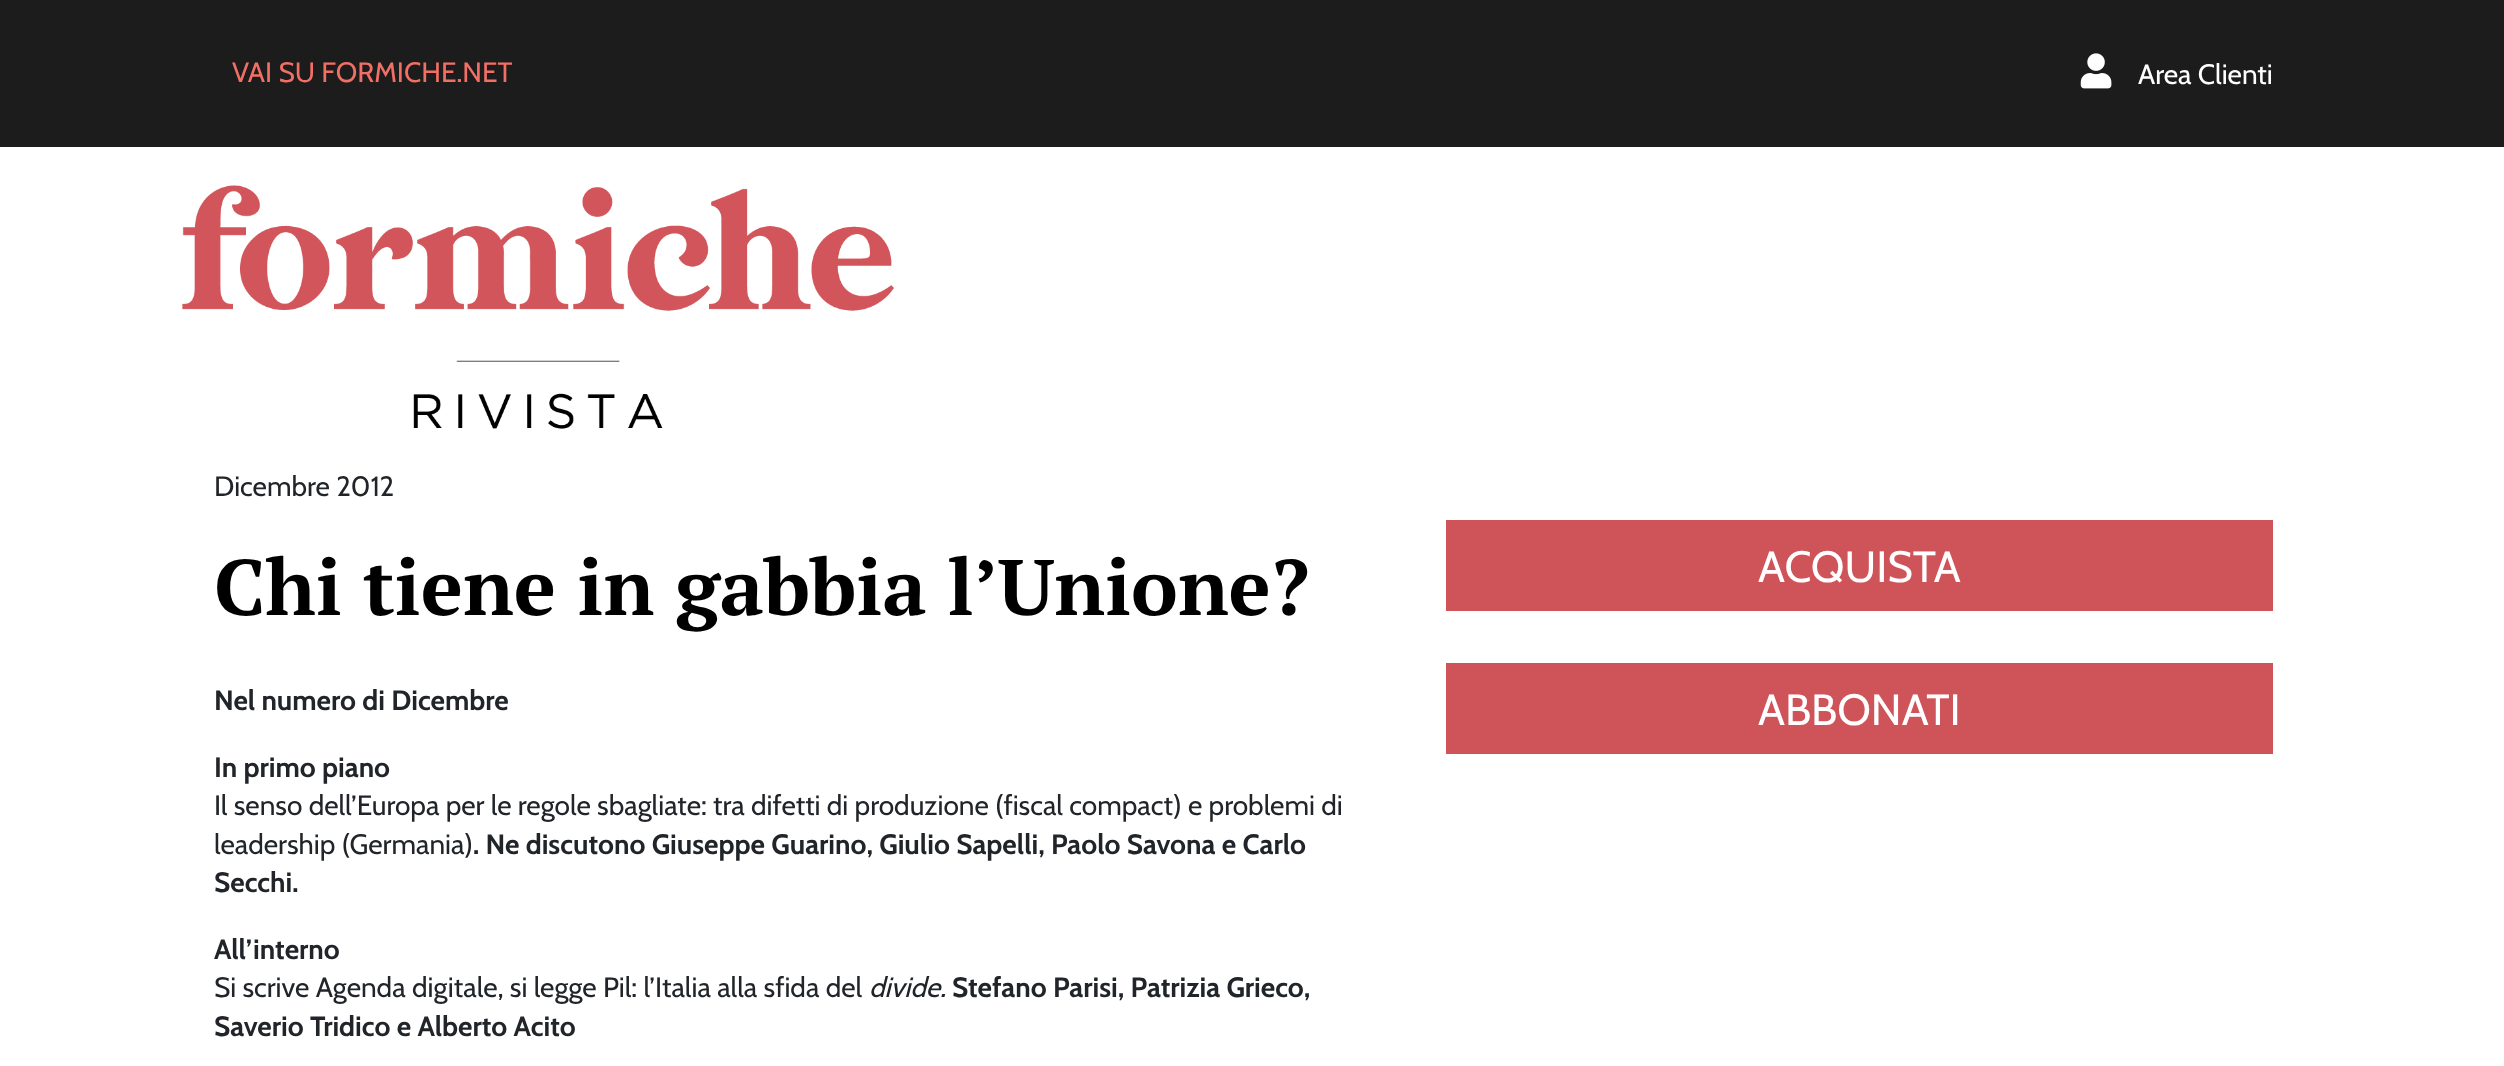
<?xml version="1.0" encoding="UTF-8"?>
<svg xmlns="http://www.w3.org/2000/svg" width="2504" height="1066">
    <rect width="100%" height="100%" fill="#FFFFFF"/>
    <rect x="0" y="0" width="2504" height="147" fill="#1C1C1C"/>
    <text x="232" y="82" font-family="Cabin" font-size="28" fill="#F26F65">VAI SU FORMICHE.NET</text>
    <image x="2080" y="53" width="32" height="36" href="img_01.png"/>
    <text x="2138" y="84" font-family="Cabin" font-size="28" fill="#FFFFFF">Area Clienti</text>
    <image x="182" y="185" width="713" height="244" href="img_02.png"/>
    <text x="214" y="496" font-family="Cabin" font-size="28" fill="#212529">Dicembre 2012</text>
    <text x="214" y="615" font-family="PT Serif" font-size="78.75" font-weight="700" fill="#000000">Chi tiene in gabbia l’Unione?</text>
    <text x="214" y="710" font-family="Cabin" font-size="28" font-weight="700" fill="#212529">Nel numero di Dicembre</text>
    <text x="214" y="777" font-family="Cabin" font-size="28" font-weight="700" fill="#212529">In primo piano</text>
    <text font-family="Cabin" font-size="28" fill="#212529">
        <tspan x="214" y="815">Il senso dell’Europa per le regole sbagliate: tra difetti di produzione (fiscal compact) e problemi di</tspan>
        <tspan x="214" y="854">leadership (Germania)</tspan>
    </text>
    <text x="473" y="854" font-family="Cabin" font-size="28" font-weight="700" fill="#212529">. Ne discutono Giuseppe Guarino, Giulio Sapelli, Paolo Savona e Carlo</text>
    <text x="214" y="892" font-family="Cabin" font-size="28" font-weight="700" fill="#212529">Secchi.</text>
    <text x="214" y="959" font-family="Cabin" font-size="28" font-weight="700" fill="#212529">All’interno</text>
    <text x="214" y="997" font-family="Cabin" font-size="28" fill="#212529">Si scrive Agenda digitale, si legge Pil: l’Italia alla sfida del</text>
    <text x="869" y="997" font-family="Cabin" font-size="28" font-style="italic" fill="#212529">divide.</text>
    <text x="952" y="997" font-family="Cabin" font-size="28" font-weight="700" fill="#212529">Stefano Parisi, Patrizia Grieco,</text>
    <text x="214" y="1036" font-family="Cabin" font-size="28" font-weight="700" fill="#212529">Saverio Tridico e Alberto Acito</text>
    <rect x="1446" y="520" width="827" height="91" fill="#CF545A"/>
    <text x="1758" y="582" font-family="Cabin" font-size="43.75" fill="#FFFFFF">ACQUISTA</text>
    <rect x="1446" y="663" width="827" height="91" fill="#CF545A"/>
    <text x="1758" y="725" font-family="Cabin" font-size="43.75" fill="#FFFFFF">ABBONATI</text>
</svg>
